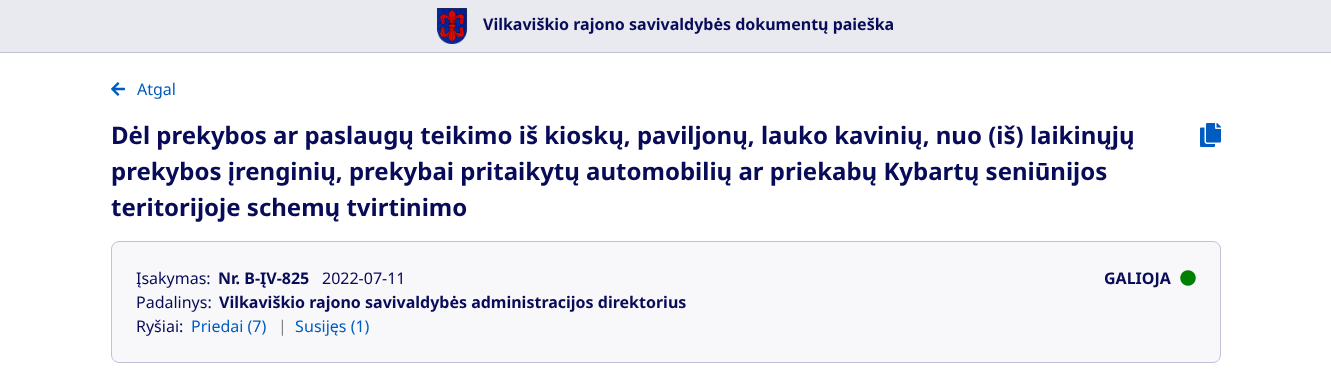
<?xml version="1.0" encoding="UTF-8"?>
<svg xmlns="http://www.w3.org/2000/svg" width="1331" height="374">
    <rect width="100%" height="100%" fill="#FFFFFF"/>
    <rect x="0" y="0" width="1331" height="52" fill="#E9E9F0"/>
    <rect x="0" y="52" width="1331" height="1" fill="#C1C2D5"/>
    <image x="437" y="8" width="30" height="36" href="img_01.png"/>
    <text x="483" y="30" font-family="Noto Sans" font-size="16" font-weight="700" fill="#080B58">Vilkaviškio rajono savivaldybės dokumentų paieška</text>
    <image x="111" y="82" width="14" height="14" href="img_02.png"/>
    <text x="137" y="95" font-family="Noto Sans" font-size="16" fill="#005CBF">Atgal</text>
    <text x="111" y="144" font-family="Noto Sans" font-size="24" font-weight="700" fill="#080B58">Dėl prekybos ar paslaugų teikimo iš kioskų, paviljonų, lauko kavinių, nuo (iš) laikinųjų</text>
    <image x="1200" y="123" width="21" height="24" href="img_03.png"/>
    <text font-family="Noto Sans" font-size="24" font-weight="700" fill="#080B58">
        <tspan x="111" y="180">prekybos įrenginių, prekybai pritaikytų automobilių ar priekabų Kybartų seniūnijos</tspan>
        <tspan x="111" y="216">teritorijoje schemų tvirtinimo</tspan>
    </text>
    <rect x="111.5" y="241.5" width="1109" height="121" rx="7.5" fill="#F8F8FA" stroke="#C1C2D5"/>
    <text x="136" y="284" font-family="Noto Sans" font-size="16" fill="#080B58">Įsakymas:</text>
    <text x="218" y="284" font-family="Noto Sans" font-size="16" font-weight="700" fill="#080B58">Nr. B-ĮV-825</text>
    <text x="322" y="284" font-family="Noto Sans" font-size="16" fill="#080B58">2022-07-11</text>
    <text x="136" y="308" font-family="Noto Sans" font-size="16" fill="#080B58">Padalinys:</text>
    <text x="219" y="308" font-family="Noto Sans" font-size="16" font-weight="700" fill="#080B58">Vilkaviškio rajono savivaldybės administracijos direktorius</text>
    <text x="1104" y="284" font-family="Noto Sans" font-size="16" font-weight="700" fill="#080B58">GALIOJA</text>
    <image x="1180" y="270" width="16" height="16" href="img_04.png"/>
    <text x="136" y="332" font-family="Noto Sans" font-size="16" fill="#080B58">Ryšiai:</text>
    <text x="191" y="332" font-family="Noto Sans" font-size="16" fill="#005CBF">Priedai (7)</text>
    <text x="278" y="332" font-family="Noto Sans" font-size="16" fill="#808080">|</text>
    <text x="295" y="332" font-family="'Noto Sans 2'" font-size="16" fill="#005CBF">S</text>
    <text x="304" y="332" font-family="Noto Sans" font-size="16" fill="#005CBF">usijęs (1)</text>
</svg>
